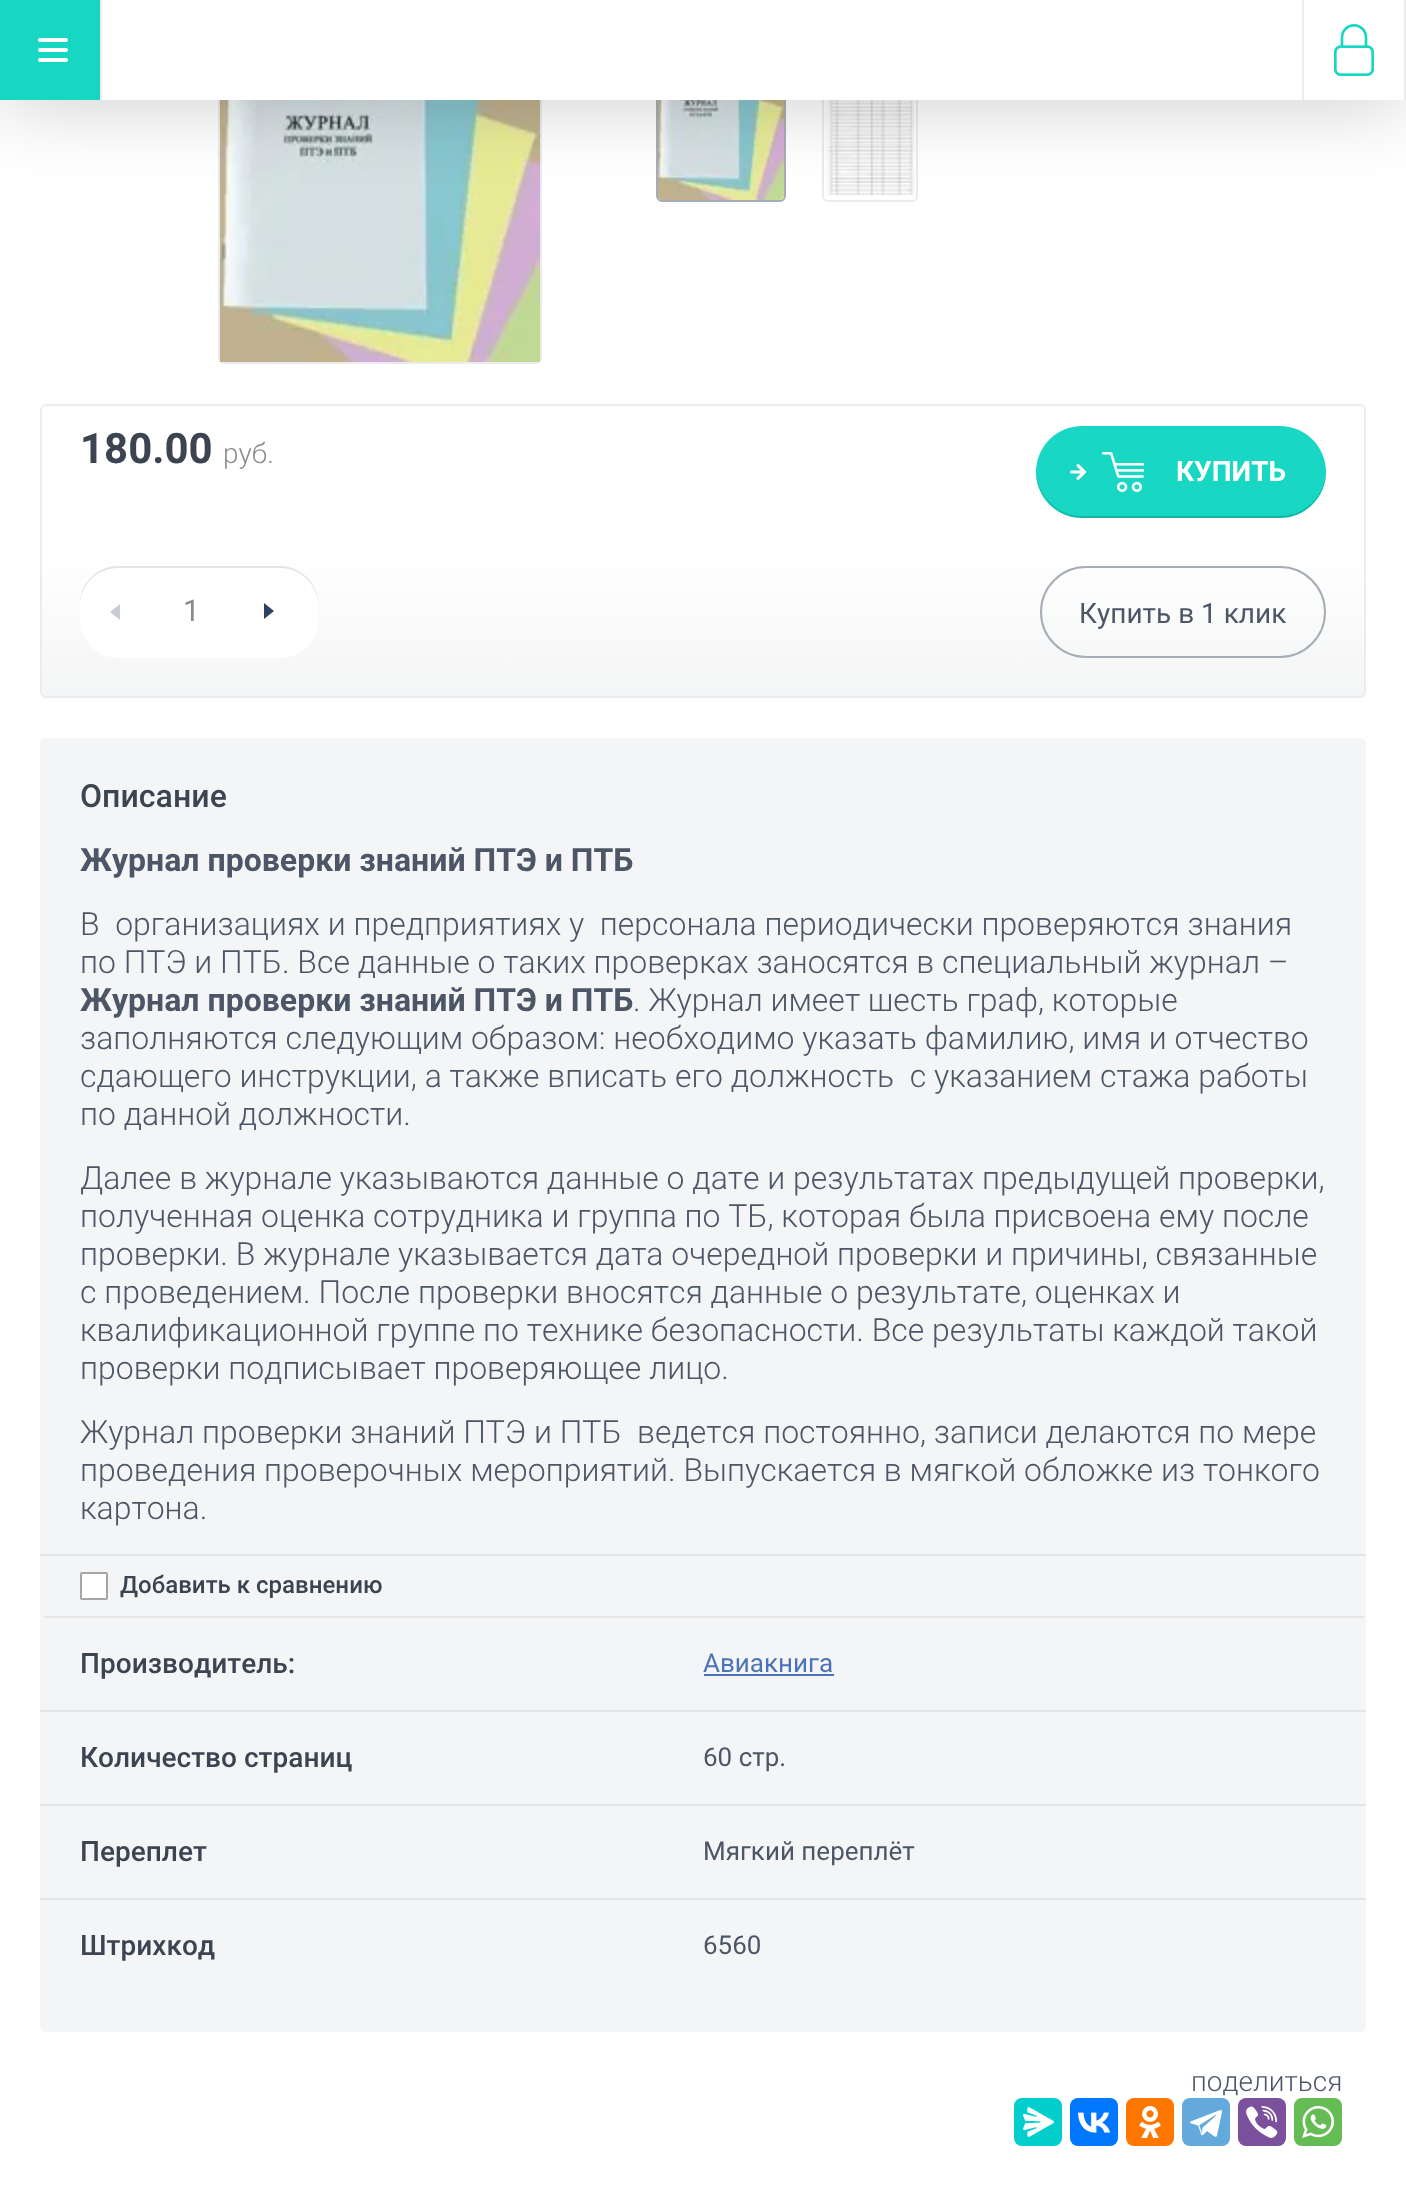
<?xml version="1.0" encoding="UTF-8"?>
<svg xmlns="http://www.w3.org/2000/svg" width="1406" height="2195">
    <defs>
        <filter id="blur1" x="-50%" y="-200%" width="200%" height="500%"><feGaussianBlur stdDeviation="40"/></filter>
        <clipPath id="clip1"><rect x="40" y="404" width="1326" height="294" rx="6"/></clipPath>
        <linearGradient id="g1" gradientUnits="userSpaceOnUse" x1="703" y1="696" x2="703" y2="406"><stop offset="0" stop-color="#F4F5F6"/><stop offset="0.5" stop-color="#FFFFFF"/></linearGradient>
        <linearGradient id="g2" gradientUnits="userSpaceOnUse" x1="1181" y1="518" x2="1181" y2="426"><stop offset="0" stop-color="#17D6C2"/><stop offset="1" stop-color="#18D7C4"/></linearGradient>
    </defs>
    <rect width="100%" height="100%" fill="#FFFFFF"/>
    <rect x="219" y="41" width="322" height="322" rx="5" fill="none" stroke="#E9EBEE" stroke-width="2"/>
    <image x="220" y="100" width="320" height="262" href="img_03.png"/>
    <rect x="657" y="69" width="128" height="132" rx="5" fill="none" stroke="#A7ADB6" stroke-width="2"/>
    <image x="658" y="100" width="126" height="100" href="img_04.png"/>
    <rect x="823" y="69" width="94" height="132" rx="5" fill="none" stroke="#E9EBEE" stroke-width="2"/>
    <image x="824" y="100" width="92" height="100" href="img_05.png"/>
    <rect x="0" y="2" width="1406" height="100" fill="#000000" fill-opacity="0.2" filter="url(#blur1)"/>
    <rect x="102" y="0" width="1302" height="100" fill="#FFFFFF"/>
    <rect x="0" y="0" width="100" height="100" fill="#17D6C2"/>
    <image x="38" y="38" width="30" height="24" href="img_01.png"/>
    <rect x="100" y="0" width="2" height="100" fill="#ECECEC"/>
    <rect x="1302" y="0" width="2" height="100" fill="#ECECEC"/>
    <rect x="1404" y="0" width="2" height="100" fill="#ECECEC"/>
    <image x="1334" y="24" width="40" height="52" href="img_02.png"/>
    <g clip-path="url(#clip1)">
        <rect x="40" y="406" width="1326" height="290" fill="url(#g1)"/>
    </g>
    <rect x="41" y="405" width="1324" height="292" rx="5" fill="none" stroke="#ECECEC" stroke-width="2"/>
    <text x="80" y="463" font-family="Roboto" font-size="42" font-weight="700" fill="#3C4452">180.00</text>
    <text x="223" y="463" font-family="Roboto" font-size="28" font-weight="300" fill="#8C8B8B">руб.</text>
    <rect x="1036" y="426" width="290" height="92" rx="46" fill="url(#g2)"/>
    <path d="M 1036 471 V 472 C 1036 497 1057 518 1082 518 H 1280 C 1305 518 1326 497 1326 472 V 471 C 1325 496 1305 516 1280 516 H 1082 C 1057 516 1037 496 1036 471 Z" fill="#000000" fill-opacity="0.14"/>
    <image x="1070" y="464" width="16" height="16" href="img_06.png"/>
    <image x="1102" y="452" width="42" height="40" href="img_07.png"/>
    <text x="1176" y="481" font-family="Roboto" font-size="28" font-weight="700" fill="#FFFFFF">КУПИТЬ</text>
    <rect x="80" y="566" width="238" height="92" rx="38" fill="#FFFFFF"/>
    <path d="M 118 568 H 280 C 301 568 318 585 318 606 V 604 C 318 583 301 566 280 566 H 118 C 97 566 80 583 80 604 V 606 C 80 585 97 568 118 568 Z" fill="#E3E4E5"/>
    <path d="M 120 604 V 620 L 110 612 Z" fill="#C9CCD1"/>
    <text x="183" y="621" font-family="Roboto" font-size="30" fill="#8C8B8B">1</text>
    <path d="M 264 619 V 603 L 274 611 Z" fill="#2D4160"/>
    <rect x="1041" y="567" width="284" height="90" rx="45" fill="none" stroke="#A7ADB6" stroke-width="2"/>
    <text x="1079" y="623" font-family="Roboto" font-size="28" fill="#4C5667">Купить в 1 клик</text>
    <rect x="40" y="738" width="1326" height="1294" rx="6" fill="#F4F5F6"/>
    <rect x="40" y="1554" width="1326" height="2" fill="#E3E4E5"/>
    <text x="80" y="807" font-family="Roboto" font-size="32" font-weight="500" fill="#3C4452">Описание</text>
    <text x="80" y="871" font-family="Roboto" font-size="32" font-weight="700" fill="#4C5667">Журнал проверки знаний ПТЭ и ПТБ</text>
    <text font-family="Roboto" font-size="32" font-weight="300" fill="#4C5667" xml:space="preserve"><tspan x="80" y="935">В  организациях и предприятиях у  персонала периодически проверяются знания</tspan><tspan x="80" y="973">по ПТЭ и ПТБ. Все данные о таких проверках заносятся в специальный журнал –</tspan></text>
    <text x="80" y="1011" font-family="Roboto" font-size="32" font-weight="700" fill="#4C5667">Журнал проверки знаний ПТЭ и ПТБ</text>
    <text x="633" y="1011" font-family="Roboto" font-size="32" font-weight="300" fill="#4C5667">. Журнал имеет шесть граф, которые</text>
    <text font-family="Roboto" font-size="32" font-weight="300" fill="#4C5667" xml:space="preserve"><tspan x="80" y="1049">заполняются следующим образом: необходимо указать фамилию, имя и отчество</tspan><tspan x="80" y="1087">сдающего инструкции, а также вписать его должность  с указанием стажа работы</tspan><tspan x="80" y="1125">по данной должности.</tspan></text>
    <text font-family="Roboto" font-size="32" font-weight="300" fill="#4C5667">
        <tspan x="80" y="1189">Далее в журнале указываются данные о дате и результатах предыдущей проверки,</tspan>
        <tspan x="80" y="1227">полученная оценка сотрудника и группа по ТБ, которая была присвоена ему после</tspan>
        <tspan x="80" y="1265">проверки. В журнале указывается дата очередной проверки и причины, связанные</tspan>
        <tspan x="80" y="1303">с проведением. После проверки вносятся данные о результате, оценках и</tspan>
        <tspan x="80" y="1341">квалификационной группе по технике безопасности. Все результаты каждой такой</tspan>
        <tspan x="80" y="1379">проверки подписывает проверяющее лицо.</tspan>
    </text>
    <text font-family="Roboto" font-size="32" font-weight="300" fill="#4C5667" xml:space="preserve"><tspan x="80" y="1443">Журнал проверки знаний ПТЭ и ПТБ  ведется постоянно, записи делаются по мере</tspan><tspan x="80" y="1481">проведения проверочных мероприятий. Выпускается в мягкой обложке из тонкого</tspan><tspan x="80" y="1519">картона.</tspan></text>
    <rect x="44" y="1616" width="1320" height="2" fill="#E5E5E5"/>
    <rect x="81" y="1573" width="26" height="26" rx="1" fill="#FFFFFF" stroke="#A6A6A6" stroke-width="2"/>
    <text x="120" y="1593" font-family="Roboto" font-size="24" font-weight="500" fill="#3C4452">Добавить к сравнению</text>
    <text x="80" y="1673" font-family="Roboto" font-size="28" font-weight="500" fill="#3C4452">Производитель:</text>
    <text x="703" y="1672" font-family="Roboto" font-size="26" fill="#4B73B5">Авиакнига</text>
    <rect x="704" y="1674" width="130" height="2" fill="#4B73B5"/>
    <rect x="40" y="1710" width="1326" height="2" fill="#E3E4E5"/>
    <text x="80" y="1767" font-family="Roboto" font-size="28" font-weight="500" fill="#3C4452">Количество страниц</text>
    <text x="703" y="1766" font-family="Roboto" font-size="26" fill="#4C5667">60 стр.</text>
    <rect x="40" y="1804" width="1326" height="2" fill="#E3E4E5"/>
    <text x="80" y="1861" font-family="Roboto" font-size="28" font-weight="500" fill="#3C4452">Переплет</text>
    <text x="703" y="1860" font-family="Roboto" font-size="26" fill="#4C5667">Мягкий переплёт</text>
    <rect x="40" y="1898" width="1326" height="2" fill="#E3E4E5"/>
    <text x="80" y="1955" font-family="Roboto" font-size="28" font-weight="500" fill="#3C4452">Штрихкод</text>
    <text x="703" y="1954" font-family="Roboto" font-size="26" fill="#4C5667">6560</text>
    <text x="1191" y="2091" font-family="Roboto" font-size="28" font-weight="300" fill="#4C5667">поделиться</text>
    <rect x="1014" y="2098" width="48" height="48" rx="8" fill="#03CECE"/>
    <image x="1023" y="2107" width="31" height="30" href="img_08.png"/>
    <rect x="1070" y="2098" width="48" height="48" rx="8" fill="#0077FF"/>
    <image x="1078" y="2112" width="33" height="21" href="img_09.png"/>
    <rect x="1126" y="2098" width="48" height="48" rx="8" fill="#FF7700"/>
    <image x="1139" y="2106" width="22" height="32" href="img_10.png"/>
    <rect x="1182" y="2098" width="48" height="48" rx="8" fill="#64A9DC"/>
    <image x="1190" y="2110" width="32" height="27" href="img_11.png"/>
    <rect x="1238" y="2098" width="48" height="48" rx="8" fill="#7B519D"/>
    <image x="1246" y="2106" width="32" height="32" href="img_12.png"/>
    <rect x="1294" y="2098" width="48" height="48" rx="8" fill="#65BC54"/>
    <image x="1302" y="2106" width="32" height="32" href="img_13.png"/>
</svg>
